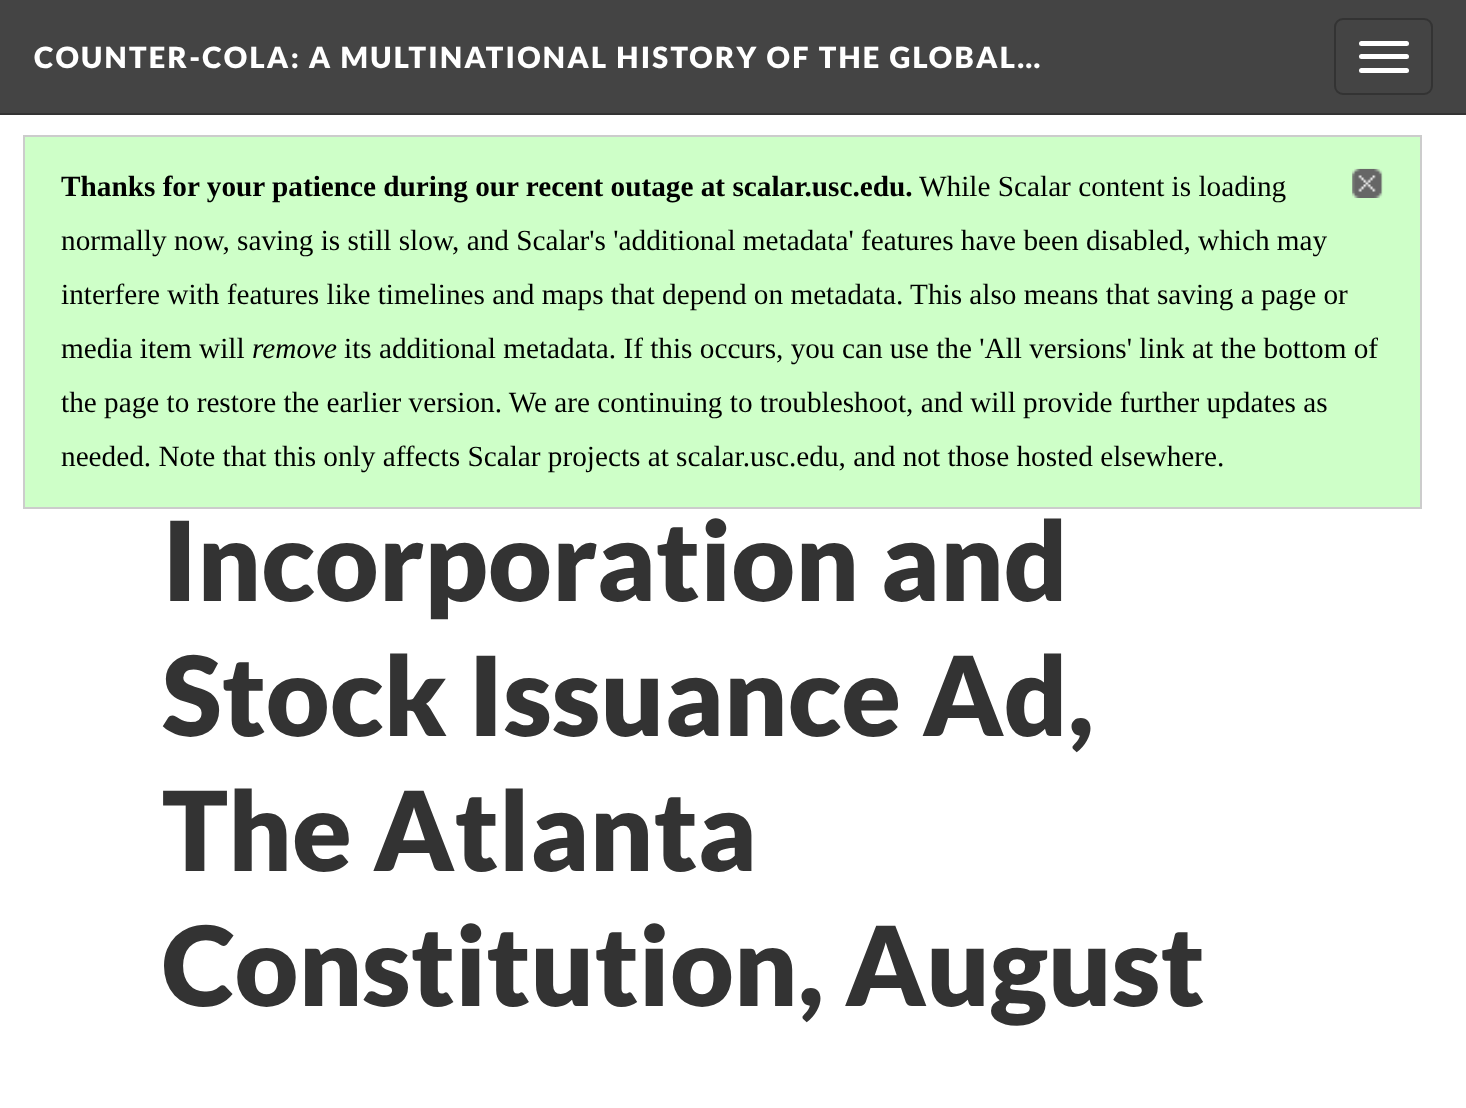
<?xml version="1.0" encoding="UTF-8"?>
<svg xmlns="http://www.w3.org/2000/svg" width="1466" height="1108">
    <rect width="100%" height="100%" fill="#FFFFFF"/>
    <rect x="0" y="0" width="1466" height="113" fill="#444444"/>
    <rect x="0" y="113" width="1466" height="2" fill="#333333"/>
    <text x="34" y="68" font-family="Lato" font-size="29.25" font-weight="900" letter-spacing="2.25" fill="#FFFFFF">COUNTER-COLA: A MULTINATIONAL HISTORY OF THE GLOBAL…</text>
    <rect x="1335" y="19" width="97" height="75" rx="8" fill="none" stroke="#333333" stroke-width="2"/>
    <rect x="1359" y="41" width="50" height="5" rx="2.5" fill="#FFFFFF"/>
    <rect x="1359" y="54" width="50" height="5" rx="2.5" fill="#FFFFFF"/>
    <rect x="1359" y="68" width="50" height="5" rx="2.5" fill="#FFFFFF"/>
    <rect x="24" y="136" width="1397" height="372" fill="#CEFFC8" stroke="#CCCCCC" stroke-width="2"/>
    <text x="61" y="196" font-family="Liberation Serif" font-size="29.25" font-weight="700" fill="#000000">Thanks for your patience during our recent outage at scalar.usc.edu.</text>
    <text x="919" y="196" font-family="Liberation Serif" font-size="29.25" fill="#000000">While Scalar content is loading</text>
    <image x="1352" y="168" width="31" height="30" href="img_01.png"/>
    <text font-family="Liberation Serif" font-size="29.25" fill="#000000">
        <tspan x="61" y="250">normally now, saving is still slow, and Scalar's 'additional metadata' features have been disabled, which may</tspan>
        <tspan x="61" y="304">interfere with features like timelines and maps that depend on metadata. This also means that saving a page or</tspan>
        <tspan x="61" y="358">media item will</tspan>
    </text>
    <text x="252" y="358" font-family="Liberation Serif" font-size="29.25" font-style="italic" fill="#000000">remove</text>
    <text x="344" y="358" font-family="Liberation Serif" font-size="29.25" fill="#000000">its additional metadata. If this occurs, you can use the 'All versions' link at the bottom of</text>
    <text font-family="Liberation Serif" font-size="29.25" fill="#000000">
        <tspan x="61" y="412">the page to restore the earlier version. We are continuing to troubleshoot, and will provide further updates as</tspan>
        <tspan x="61" y="466">needed. Note that this only affects Scalar projects at scalar.usc.edu, and not those hosted elsewhere.</tspan>
    </text>
    <text font-family="Lato" font-size="110.25" font-weight="900" fill="#333333">
        <tspan x="162" y="601">Incorporation and</tspan>
        <tspan x="162" y="736">Stock Issuance Ad,</tspan>
        <tspan x="162" y="871">The Atlanta</tspan>
        <tspan x="162" y="1006">Constitution, August</tspan>
    </text>
</svg>
